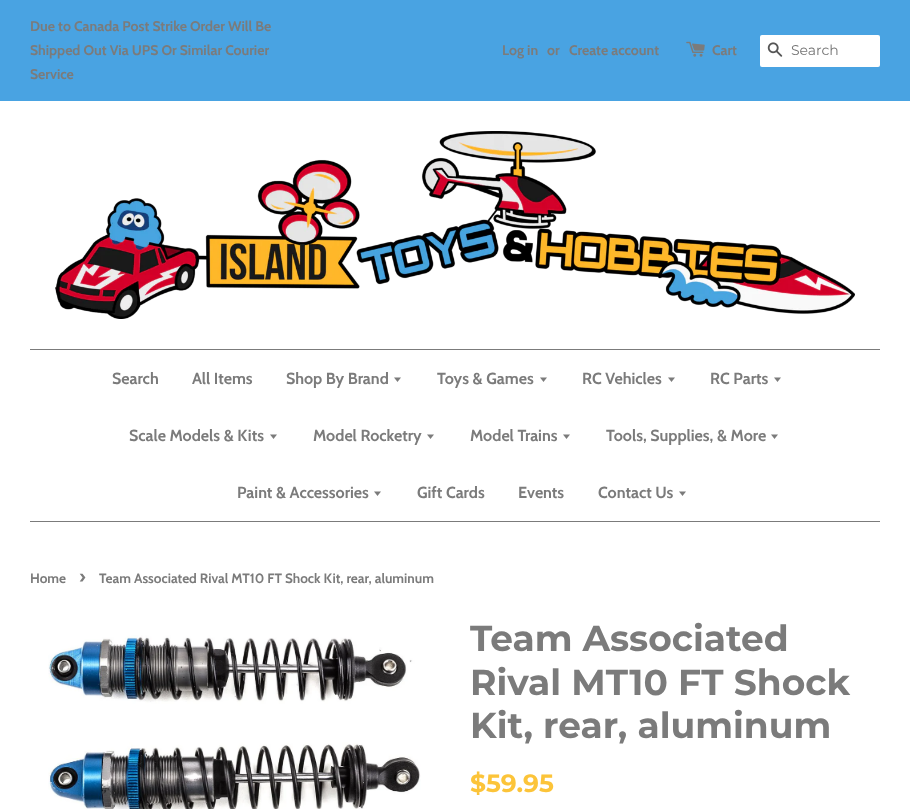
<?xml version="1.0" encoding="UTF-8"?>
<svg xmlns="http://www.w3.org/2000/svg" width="910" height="809">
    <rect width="100%" height="100%" fill="#FFFFFF"/>
    <rect x="0" y="0" width="910" height="101" fill="#49A3E2"/>
    <text font-family="Cabin" font-size="14" font-weight="700" fill="#7B7B7B">
        <tspan x="30" y="31">Due to Canada Post Strike Order Will Be</tspan>
        <tspan x="30" y="55">Shipped Out Via UPS Or Similar Courier</tspan>
        <tspan x="30" y="79">Service</tspan>
    </text>
    <text x="502" y="55" font-family="Cabin" font-size="14" font-weight="700" fill="#7B7B7B">Log in</text>
    <text x="547" y="55" font-family="Cabin" font-size="14" font-weight="700" fill="#7B7B7B">or</text>
    <text x="569" y="55" font-family="Cabin" font-size="14" font-weight="700" fill="#7B7B7B">Create account</text>
    <image x="686" y="41" width="19" height="16" href="img_01.png"/>
    <text x="712" y="55" font-family="Cabin" font-size="14" font-weight="700" fill="#7B7B7B">Cart</text>
    <rect x="760" y="35" width="120" height="32" rx="2" fill="#FFFFFF"/>
    <image x="767" y="42" width="16" height="15" href="img_02.png"/>
    <text x="791" y="55" font-family="Montserrat" font-size="14" fill="#757575">Search</text>
    <image x="55" y="131" width="800" height="188" href="img_03.png"/>
    <rect x="30" y="349" width="850" height="1" fill="#7B7B7B"/>
    <rect x="30" y="521" width="850" height="1" fill="#7B7B7B"/>
    <text x="112" y="384" font-family="Cabin" font-size="16" font-weight="700" fill="#7B7B7B">Search</text>
    <text x="192" y="384" font-family="Cabin" font-size="16" font-weight="700" fill="#7B7B7B">All Items</text>
    <text x="286" y="384" font-family="Cabin" font-size="16" font-weight="700" fill="#7B7B7B">Shop By Brand</text>
    <path d="M 394 377.5 L 397.5 382 L 401 377.5 Z" fill="#7B7B7B"/>
    <text x="437" y="384" font-family="Cabin" font-size="16" font-weight="700" fill="#7B7B7B">Toys &amp; Games</text>
    <path d="M 540 377.5 L 543.5 382 L 547 377.5 Z" fill="#7B7B7B"/>
    <text x="582" y="384" font-family="Cabin" font-size="16" font-weight="700" fill="#7B7B7B">RC Vehicles</text>
    <path d="M 668 377.5 L 671.5 382 L 675 377.5 Z" fill="#7B7B7B"/>
    <text x="710" y="384" font-family="Cabin" font-size="16" font-weight="700" fill="#7B7B7B">RC Parts</text>
    <path d="M 774 377.5 L 777.5 382 L 781 377.5 Z" fill="#7B7B7B"/>
    <text x="129" y="441" font-family="Cabin" font-size="16" font-weight="700" fill="#7B7B7B">Scale Models &amp; Kits</text>
    <path d="M 270 434.5 L 273.5 439 L 277 434.5 Z" fill="#7B7B7B"/>
    <text x="313" y="441" font-family="Cabin" font-size="16" font-weight="700" fill="#7B7B7B">Model Rocketry</text>
    <path d="M 427 434.5 L 430.5 439 L 434 434.5 Z" fill="#7B7B7B"/>
    <text x="470" y="441" font-family="Cabin" font-size="16" font-weight="700" fill="#7B7B7B">Model Trains</text>
    <path d="M 563 434.5 L 566.5 439 L 570 434.5 Z" fill="#7B7B7B"/>
    <text x="606" y="441" font-family="Cabin" font-size="16" font-weight="700" fill="#7B7B7B">Tools, Supplies, &amp; More</text>
    <path d="M 771 434.5 L 774.5 439 L 778 434.5 Z" fill="#7B7B7B"/>
    <text x="237" y="498" font-family="Cabin" font-size="16" font-weight="700" fill="#7B7B7B">Paint &amp; Accessories</text>
    <path d="M 374 491.5 L 377.5 496 L 381 491.5 Z" fill="#7B7B7B"/>
    <text x="417" y="498" font-family="Cabin" font-size="16" font-weight="700" fill="#7B7B7B">Gift Cards</text>
    <text x="518" y="498" font-family="Cabin" font-size="16" font-weight="700" fill="#7B7B7B">Events</text>
    <text x="598" y="498" font-family="Cabin" font-size="16" font-weight="700" fill="#7B7B7B">Contact Us</text>
    <path d="M 679 491.5 L 682.5 496 L 686 491.5 Z" fill="#7B7B7B"/>
    <text x="30" y="583" font-family="Cabin" font-size="13.5" font-weight="700" fill="#7B7B7B">Home</text>
    <text x="79" y="583" font-family="Cabin" font-size="19" font-weight="700" fill="#7B7B7B">›</text>
    <text x="99" y="583" font-family="Cabin" font-size="13.5" font-weight="700" fill="#7B7B7B">Team Associated Rival MT10 FT Shock Kit, rear, aluminum</text>
    <image x="48" y="635" width="373" height="174" href="img_04.png"/>
    <text font-family="Montserrat" font-size="36" font-weight="700" fill="#7B7B7B">
        <tspan x="470" y="651">Team Associated</tspan>
        <tspan x="470" y="695">Rival MT10 FT Shock</tspan>
        <tspan x="470" y="738">Kit, rear, aluminum</tspan>
    </text>
    <text x="470" y="792" font-family="Montserrat" font-size="25" font-weight="700" fill="#FCC439">$59.95</text>
</svg>
